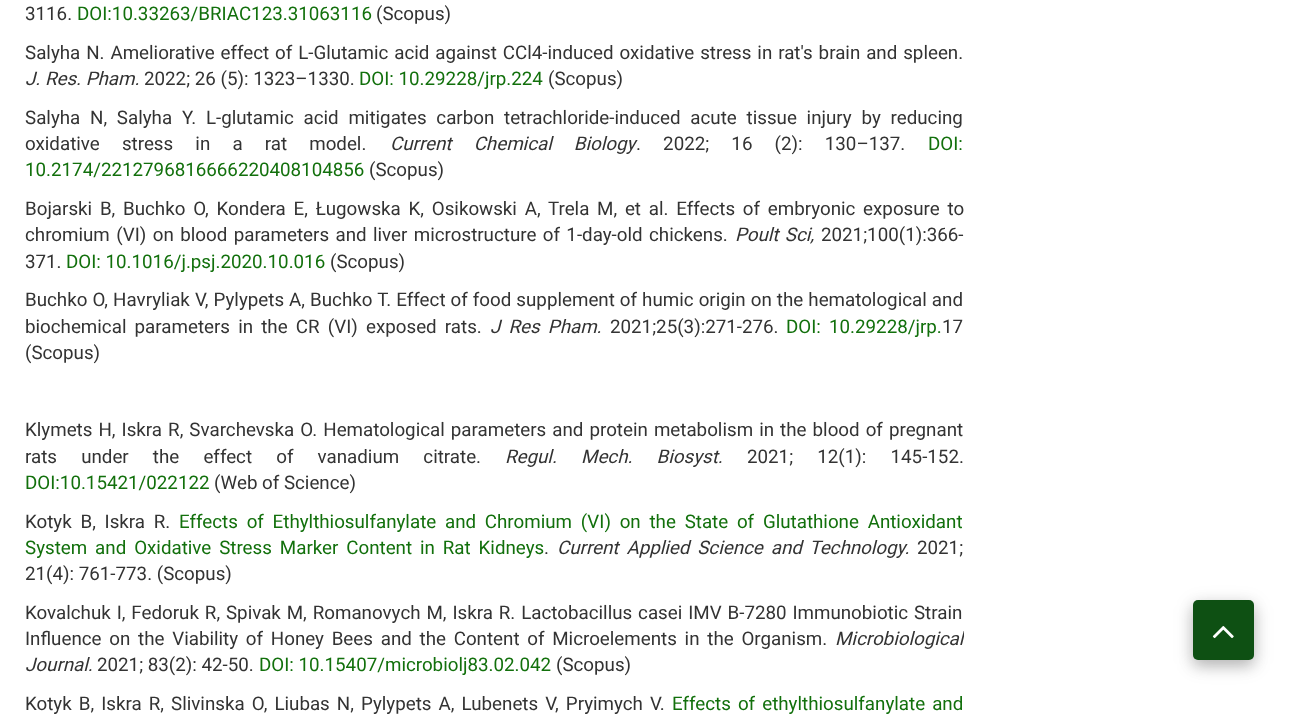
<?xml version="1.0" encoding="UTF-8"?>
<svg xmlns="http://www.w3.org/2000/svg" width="1310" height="716">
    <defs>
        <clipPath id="clip1"><rect x="25" y="0" width="939" height="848"/></clipPath>
        <filter id="blur1" x="-50%" y="-200%" width="200%" height="500%"><feGaussianBlur stdDeviation="9.5"/></filter>
        <filter id="blur2" x="-50%" y="-200%" width="200%" height="500%"><feGaussianBlur stdDeviation="7"/></filter>
    </defs>
    <rect width="100%" height="100%" fill="#FFFFFF"/>
    <text x="25" y="20" font-family="Roboto" font-size="18.75" fill="#333333">3116.</text>
    <text x="77" y="20" font-family="Roboto" font-size="18.75" fill="#12700C">DOI:10.33263/BRIAC123.31063116</text>
    <text x="376" y="20" font-family="Roboto" font-size="18.75" fill="#333333">(Scopus)</text>
    <text x="25" y="59" word-spacing="1.25" font-family="Roboto" font-size="18.75" fill="#333333">Salyha N. Ameliorative effect of L-Glutamic acid against CCl4-induced oxidative stress in rat's brain and spleen.</text>
    <text x="25" y="85" font-family="Roboto" font-size="18.75" font-style="italic" fill="#333333">J. Res. Pham.</text>
    <text x="144" y="85" font-family="Roboto" font-size="18.75" fill="#333333">2022; 26 (5): 1323–1330.</text>
    <text x="359" y="85" font-family="Roboto" font-size="18.75" fill="#12700C">DOI: 10.29228/jrp.224</text>
    <text x="548" y="85" font-family="Roboto" font-size="18.75" fill="#333333">(Scopus)</text>
    <text font-family="Roboto" font-size="18.75" fill="#333333">
        <tspan x="25" y="124" word-spacing="5.1">Salyha N, Salyha Y. L-glutamic acid mitigates carbon tetrachloride-induced acute tissue injury by reducing</tspan>
        <tspan x="25" y="150" word-spacing="17.5">oxidative stress in a rat model.</tspan>
    </text>
    <text x="390" y="150" word-spacing="17.5" font-family="Roboto" font-size="18.75" font-style="italic" fill="#333333">Current Chemical Biology</text>
    <text x="636" y="150" word-spacing="17.5" font-family="Roboto" font-size="18.75" fill="#333333">. 2022; 16 (2): 130–137.</text>
    <text x="928" y="150" font-family="Roboto" font-size="18.75" fill="#12700C">DOI:</text>
    <text x="25" y="176" font-family="Roboto" font-size="18.75" fill="#12700C">10.2174/2212796816666220408104856</text>
    <text x="369" y="176" font-family="Roboto" font-size="18.75" fill="#333333">(Scopus)</text>
    <text font-family="Roboto" font-size="18.75" fill="#333333">
        <tspan x="25" y="215" word-spacing="3.1">Bojarski B, Buchko O, Kondera E, Ługowska K, Osikowski A, Trela M, et al. Effects of embryonic exposure to</tspan>
        <tspan x="25" y="241" word-spacing="1.75">chromium (VI) on blood parameters and liver microstructure of 1-day-old chickens.</tspan>
    </text>
    <text x="735" y="241" word-spacing="1.75" font-family="Roboto" font-size="18.75" font-style="italic" fill="#333333">Poult Sci,</text>
    <text x="821" y="241" font-family="Roboto" font-size="18.75" fill="#333333">2021;100(1):366-</text>
    <text x="25" y="268" font-family="Roboto" font-size="18.75" fill="#333333">371.</text>
    <text x="66" y="268" font-family="Roboto" font-size="18.75" fill="#12700C">DOI: 10.1016/j.psj.2020.10.016</text>
    <text x="330" y="268" font-family="Roboto" font-size="18.75" fill="#333333">(Sсopus)</text>
    <text font-family="Roboto" font-size="18.75" fill="#333333">
        <tspan x="25" y="306" word-spacing="0.4">Buchko O, Havryliak V, Pylypets A, Buchko T. Effect of food supplement of humic origin on the hematological and</tspan>
        <tspan x="25" y="333" word-spacing="3.5">biochemical parameters in the CR (VI) exposed rats.</tspan>
    </text>
    <text x="490" y="333" word-spacing="3.5" font-family="Roboto" font-size="18.75" font-style="italic" fill="#333333">J Res Pham.</text>
    <text x="610" y="333" font-family="Roboto" font-size="18.75" fill="#333333">2021;25(3):271-276.</text>
    <text x="786" y="333" word-spacing="3.5" font-family="Roboto" font-size="18.75" fill="#12700C">DOI: 10.29228/jrp.</text>
    <text x="942" y="333" font-family="Roboto" font-size="18.75" fill="#333333">17</text>
    <text x="25" y="359" font-family="Roboto" font-size="18.75" fill="#333333">(Scopus)</text>
    <text font-family="Roboto" font-size="18.75" fill="#333333">
        <tspan x="25" y="436" word-spacing="1.4">Klymets H, Iskra R, Svarchevska O. Hematological parameters and protein metabolism in the blood of pregnant</tspan>
        <tspan x="25" y="463" word-spacing="19.5">rats under the effect of vanadium citrate.</tspan>
    </text>
    <text x="505" y="463" word-spacing="19.5" font-family="Roboto" font-size="18.75" font-style="italic" fill="#333333">Regul. Mech. Biosyst.</text>
    <text x="747" y="463" word-spacing="19.5" font-family="Roboto" font-size="18.75" fill="#333333">2021; 12(1): 145-152.</text>
    <text x="25" y="489" font-family="Roboto" font-size="18.75" fill="#12700C">DOI:10.15421/022122</text>
    <text x="214" y="489" font-family="Roboto" font-size="18.75" fill="#333333">(Web of Science)</text>
    <text x="25" y="528" word-spacing="4.1" font-family="Roboto" font-size="18.75" fill="#333333">Kotyk B, Iskra R.</text>
    <text x="179" y="528" word-spacing="4.1" font-family="Roboto" font-size="18.75" fill="#12700C">Effects of Ethylthiosulfanylate and Chromium (VI) on the State of Glutathione Antioxidant</text>
    <text x="25" y="554" word-spacing="3.25" font-family="Roboto" font-size="18.75" fill="#12700C">System and Oxidative Stress Marker Content in Rat Kidneys</text>
    <text x="544" y="554" font-family="Roboto" font-size="18.75" fill="#333333">.</text>
    <text x="557" y="554" word-spacing="3.25" font-family="Roboto" font-size="18.75" font-style="italic" fill="#333333">Current Applied Science and Technology.</text>
    <text x="917" y="554" font-family="Roboto" font-size="18.75" fill="#333333">2021;</text>
    <text x="25" y="580" font-family="Roboto" font-size="18.75" fill="#333333">21(4): 761-773. (Scopus)</text>
    <text font-family="Roboto" font-size="18.75" fill="#333333">
        <tspan x="25" y="619" word-spacing="1.25">Kovalсhuk I, Fedoruk R, Spivak M, Romanovyсh M, Iskra R. Laсtobaсillus сasei IMV B-7280 Immunobiotic Strain</tspan>
        <tspan x="25" y="645" word-spacing="3.1">Influence on the Viability of Honey Bees and the Content of Microelements in the Organism.</tspan>
    </text>
    <g clip-path="url(#clip1)">
        <text x="835" y="645" font-family="Roboto" font-size="18.75" font-style="italic" fill="#333333">Microbiological</text>
    </g>
    <text x="25" y="671" font-family="Roboto" font-size="18.75" font-style="italic" fill="#333333">Journal.</text>
    <text x="97" y="671" font-family="Roboto" font-size="18.75" fill="#333333">2021; 83(2): 42-50.</text>
    <text x="259" y="671" font-family="Roboto" font-size="18.75" fill="#12700C">DOI: 10.15407/microbiolj83.02.042</text>
    <text x="556" y="671" font-family="Roboto" font-size="18.75" fill="#333333">(Sсopus)</text>
    <text x="25" y="710" word-spacing="2.4" font-family="Roboto" font-size="18.75" fill="#333333">Kotyk B, Iskra R, Slivinska O, Liubas N, Pylypets A, Lubenets V, Pryimych V.</text>
    <text x="672" y="710" word-spacing="2.4" font-family="Roboto" font-size="18.75" fill="#12700C">Effects of ethylthiosulfanylate and</text>
    <rect x="1193" y="605" width="61" height="60" rx="5" fill="#000000" fill-opacity="0.15" filter="url(#blur1)"/>
    <rect x="1193" y="606" width="61" height="60" rx="5" fill="#000000" fill-opacity="0.18" filter="url(#blur2)"/>
    <rect x="1193" y="600" width="61" height="60" rx="5" fill="#0E5013"/>
    <image x="1212" y="626" width="22" height="13" href="img_01.png"/>
</svg>
